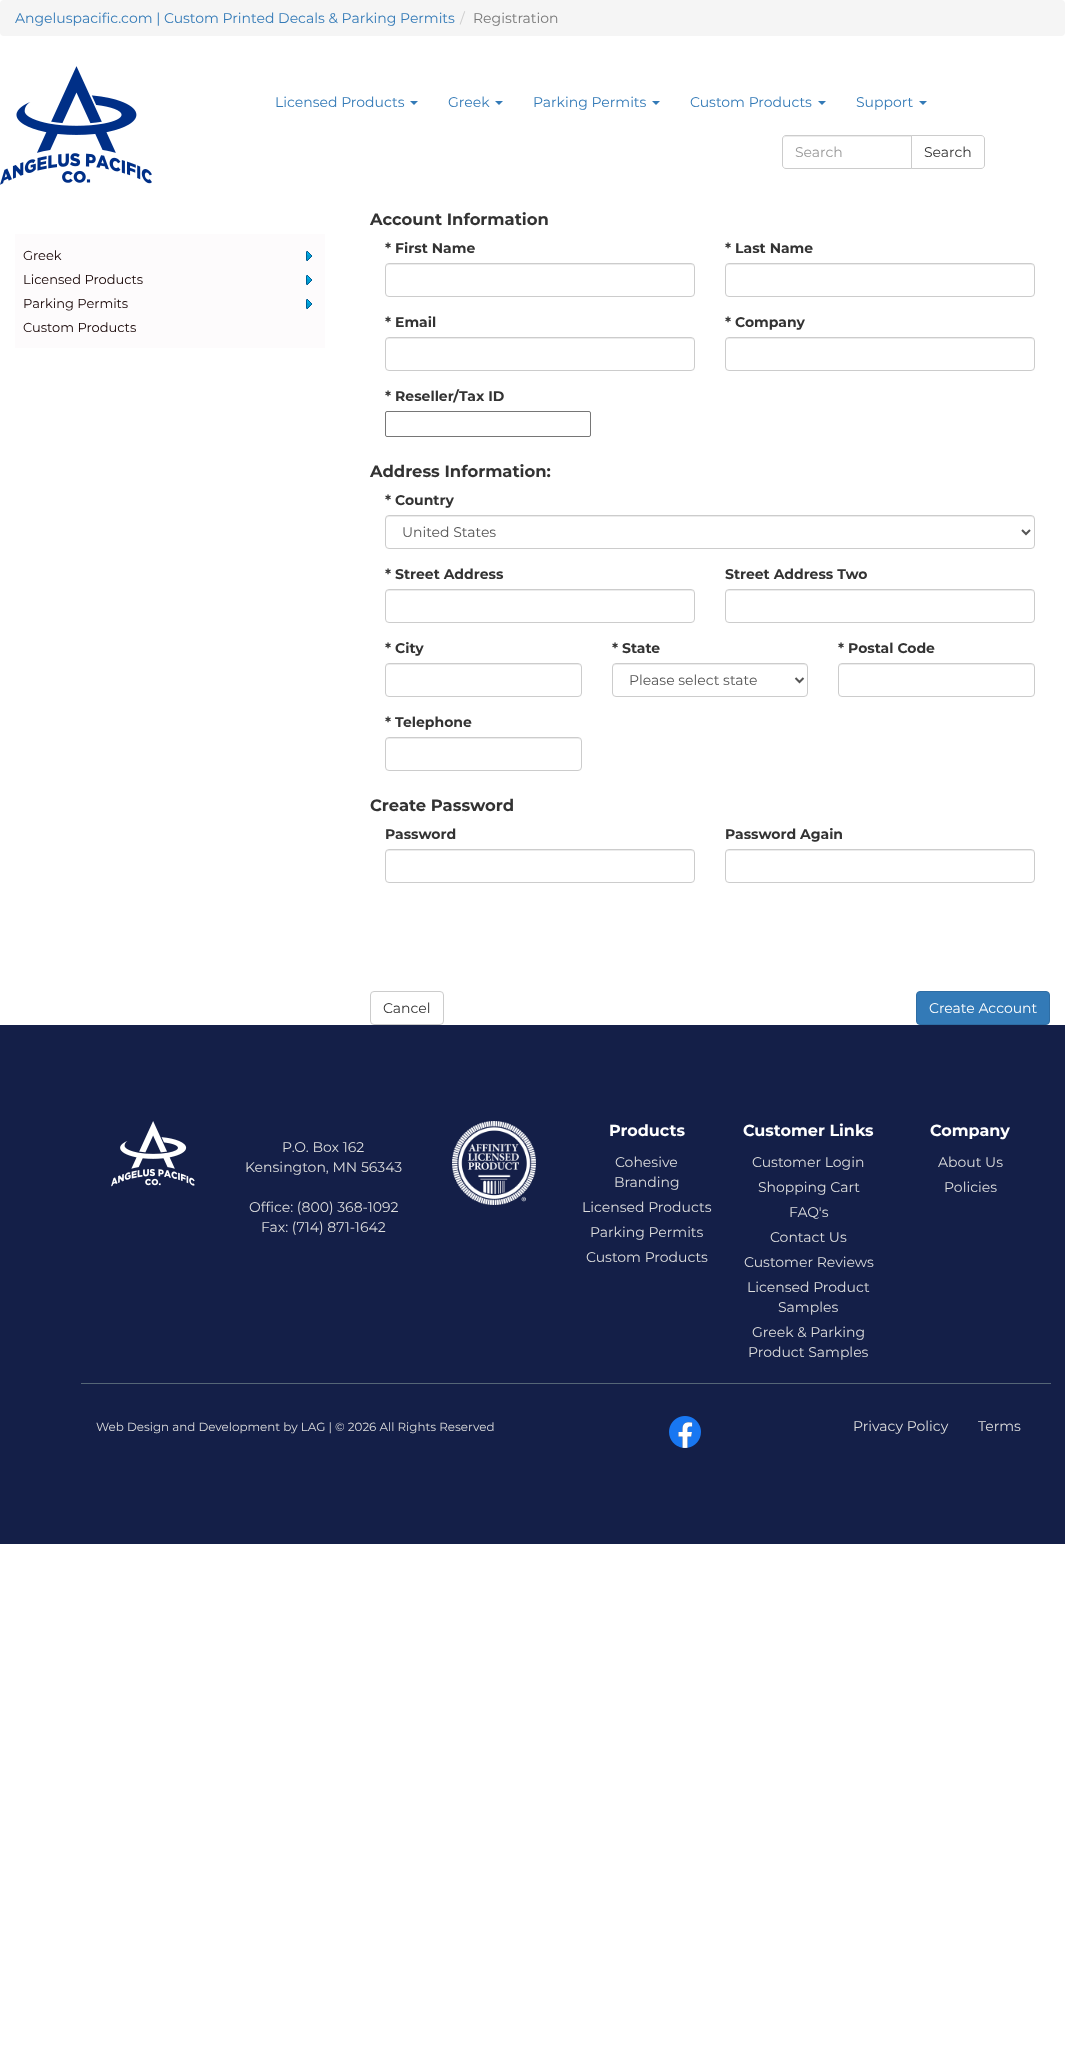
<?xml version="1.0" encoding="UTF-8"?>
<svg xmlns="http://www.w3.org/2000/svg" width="1065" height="2069">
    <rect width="100%" height="100%" fill="#FFFFFF"/>
    <rect x="0" y="0" width="1065" height="36" rx="4" fill="#F5F5F5"/>
    <text x="15" y="23" font-family="Montserrat" font-size="14" fill="#337AB7">Angeluspacific.com | Custom Printed Decals &amp; Parking Permits</text>
    <text x="460" y="23" font-family="Montserrat" font-size="14" fill="#CCCCCC">/</text>
    <text x="473" y="23" font-family="Montserrat" font-size="14" fill="#777777">Registration</text>
    <image x="0" y="66" width="152" height="119" href="img_01.png"/>
    <text x="275" y="107" font-family="Montserrat" font-size="14" fill="#337AB7">Licensed Products</text>
    <path d="M 410 101 H 418 L 414 105 Z" fill="#337AB7"/>
    <text x="448" y="107" font-family="Montserrat" font-size="14" fill="#337AB7">Greek</text>
    <path d="M 495 101 H 503 L 499 105 Z" fill="#337AB7"/>
    <text x="533" y="107" font-family="Montserrat" font-size="14" fill="#337AB7">Parking Permits</text>
    <path d="M 652 101 H 660 L 656 105 Z" fill="#337AB7"/>
    <text x="690" y="107" font-family="Montserrat" font-size="14" fill="#337AB7">Custom Products</text>
    <path d="M 818 101 H 826 L 822 105 Z" fill="#337AB7"/>
    <text x="856" y="107" font-family="Montserrat" font-size="14" fill="#337AB7">Support</text>
    <path d="M 919 101 H 927 L 923 105 Z" fill="#337AB7"/>
    <path d="M 786 137 H 911 V 136 H 786 C 784 136 783 138 783 140 C 783 138 784 137 786 137 Z" fill="#ECECEC"/>
    <path d="M 786 135.5 H 911.5 V 168.5 H 786 C 784 168.5 782.5 167 782.5 165 V 139 C 782.5 137 784 135.5 786 135.5 Z" fill="none" stroke="#CCCCCC"/>
    <text x="795" y="157" font-family="Montserrat" font-size="14" fill="#999999">Search</text>
    <path d="M 911.5 135.5 H 981 C 983 135.5 984.5 137 984.5 139 V 165 C 984.5 167 983 168.5 981 168.5 H 911.5 Z" fill="#FFFFFF" stroke="#CCCCCC"/>
    <text x="924" y="157" font-family="Montserrat" font-size="14" fill="#333333">Search</text>
    <rect x="15" y="234" width="310" height="114" fill="#FDFBFC"/>
    <image x="306" y="251" width="6" height="10" href="img_02.png"/>
    <text x="23" y="260" font-family="Montserrat" font-size="13" fill="#150303">Greek</text>
    <image x="306" y="275" width="6" height="10" href="img_02.png"/>
    <text x="23" y="284" font-family="Montserrat" font-size="13" fill="#150303">Licensed Products</text>
    <image x="306" y="299" width="6" height="10" href="img_02.png"/>
    <text font-family="Montserrat" font-size="13" fill="#150303">
        <tspan x="23" y="308">Parking Permits</tspan>
        <tspan x="23" y="332">Custom Products</tspan>
    </text>
    <text x="370" y="225" font-family="Montserrat" font-size="16.4" font-weight="700" fill="#333333">Account Information</text>
    <text x="385" y="253" font-family="Montserrat" font-size="14" font-weight="700" fill="#333333">* First Name</text>
    <path d="M 389 265 H 691 C 693 265 694 266 694 268 L 693 265 L 692 264 H 389 C 387 264 386 266 386 268 C 386 266 387 265 389 265 Z" fill="#ECECEC"/>
    <rect x="385.5" y="263.5" width="309" height="33" rx="3.5" fill="none" stroke="#CCCCCC"/>
    <text x="725" y="253" font-family="Montserrat" font-size="14" font-weight="700" fill="#333333">* Last Name</text>
    <path d="M 729 265 H 1031 C 1033 265 1034 266 1034 268 L 1033 265 L 1032 264 H 729 C 727 264 726 266 726 268 C 726 266 727 265 729 265 Z" fill="#ECECEC"/>
    <rect x="725.5" y="263.5" width="309" height="33" rx="3.5" fill="none" stroke="#CCCCCC"/>
    <text x="385" y="327" font-family="Montserrat" font-size="14" font-weight="700" fill="#333333">* Email</text>
    <path d="M 389 339 H 691 C 693 339 694 340 694 342 L 693 339 L 692 338 H 389 C 387 338 386 340 386 342 C 386 340 387 339 389 339 Z" fill="#ECECEC"/>
    <rect x="385.5" y="337.5" width="309" height="33" rx="3.5" fill="none" stroke="#CCCCCC"/>
    <text x="725" y="327" font-family="Montserrat" font-size="14" font-weight="700" fill="#333333">* Company</text>
    <path d="M 729 339 H 1031 C 1033 339 1034 340 1034 342 L 1033 339 L 1032 338 H 729 C 727 338 726 340 726 342 C 726 340 727 339 729 339 Z" fill="#ECECEC"/>
    <rect x="725.5" y="337.5" width="309" height="33" rx="3.5" fill="none" stroke="#CCCCCC"/>
    <text x="385" y="401" font-family="Montserrat" font-size="14" font-weight="700" fill="#333333">* Reseller/Tax ID</text>
    <rect x="385.5" y="411.5" width="205" height="25" rx="1.5" fill="none" stroke="#767676"/>
    <text x="370" y="477" font-family="Montserrat" font-size="16.4" font-weight="700" fill="#333333">Address Information:</text>
    <text x="385" y="505" font-family="Montserrat" font-size="14" font-weight="700" fill="#333333">* Country</text>
    <path d="M 389 517 H 1031 C 1033 517 1034 518 1034 520 V 519 C 1034 517 1033 516 1031 516 H 389 C 387 516 386 517 386 519 V 520 C 386 518 387 517 389 517 Z" fill="#ECECEC"/>
    <rect x="385.5" y="515.5" width="649" height="33" rx="3.5" fill="none" stroke="#CCCCCC"/>
    <path d="M 1022 530 L 1026 534 L 1030 530" fill="none" stroke="#555555" stroke-width="2"/>
    <text x="402" y="537" font-family="Montserrat" font-size="14" fill="#555555">United States</text>
    <text x="385" y="579" font-family="Montserrat" font-size="14" font-weight="700" fill="#333333">* Street Address</text>
    <path d="M 389 591 H 691 C 693 591 694 592 694 594 L 693 591 L 692 590 H 389 C 387 590 386 592 386 594 C 386 592 387 591 389 591 Z" fill="#ECECEC"/>
    <rect x="385.5" y="589.5" width="309" height="33" rx="3.5" fill="none" stroke="#CCCCCC"/>
    <text x="725" y="579" font-family="Montserrat" font-size="14" font-weight="700" fill="#333333">Street Address Two</text>
    <path d="M 729 591 H 1031 C 1033 591 1034 592 1034 594 L 1033 591 L 1032 590 H 729 C 727 590 726 592 726 594 C 726 592 727 591 729 591 Z" fill="#ECECEC"/>
    <rect x="725.5" y="589.5" width="309" height="33" rx="3.5" fill="none" stroke="#CCCCCC"/>
    <text x="385" y="653" font-family="Montserrat" font-size="14" font-weight="700" fill="#333333">* City</text>
    <path d="M 389 665 H 578 C 580 665 581 666 581 668 C 581 666 580 664 578 664 H 389 C 387 664 386 666 386 668 C 386 666 387 665 389 665 Z" fill="#ECECEC"/>
    <rect x="385.5" y="663.5" width="196" height="33" rx="3.5" fill="none" stroke="#CCCCCC"/>
    <text x="612" y="653" font-family="Montserrat" font-size="14" font-weight="700" fill="#333333">* State</text>
    <path d="M 616 665 H 804 C 806 665 807 666 807 668 C 807 666 806 664 804 664 H 616 C 614 664 613 666 613 668 C 613 666 614 665 616 665 Z" fill="#ECECEC"/>
    <rect x="612.5" y="663.5" width="195" height="33" rx="3.5" fill="none" stroke="#CCCCCC"/>
    <path d="M 795.5 678 L 799.5 682 L 803.5 678" fill="none" stroke="#555555" stroke-width="2"/>
    <text x="629" y="685" font-family="Montserrat" font-size="14" fill="#555555">Please select state</text>
    <text x="838" y="653" font-family="Montserrat" font-size="14" font-weight="700" fill="#333333">* Postal Code</text>
    <path d="M 842 665 H 1031 C 1033 665 1034 666 1034 668 C 1034 666 1033 664 1031 664 H 842 C 840 664 839 666 839 668 C 839 666 840 665 842 665 Z" fill="#ECECEC"/>
    <rect x="838.5" y="663.5" width="196" height="33" rx="3.5" fill="none" stroke="#CCCCCC"/>
    <text x="385" y="727" font-family="Montserrat" font-size="14" font-weight="700" fill="#333333">* Telephone</text>
    <path d="M 389 739 H 578 C 580 739 581 740 581 742 C 581 740 580 738 578 738 H 389 C 387 738 386 740 386 742 C 386 740 387 739 389 739 Z" fill="#ECECEC"/>
    <rect x="385.5" y="737.5" width="196" height="33" rx="3.5" fill="none" stroke="#CCCCCC"/>
    <text x="370" y="811" font-family="Montserrat" font-size="16.4" font-weight="700" fill="#333333">Create Password</text>
    <text x="385" y="839" font-family="Montserrat" font-size="14" font-weight="700" fill="#333333">Password</text>
    <path d="M 389 851 H 691 C 693 851 694 852 694 854 L 693 851 L 692 850 H 389 C 387 850 386 852 386 854 C 386 852 387 851 389 851 Z" fill="#ECECEC"/>
    <rect x="385.5" y="849.5" width="309" height="33" rx="3.5" fill="none" stroke="#CCCCCC"/>
    <text x="725" y="839" font-family="Montserrat" font-size="14" font-weight="700" fill="#333333">Password Again</text>
    <path d="M 729 851 H 1031 C 1033 851 1034 852 1034 854 L 1033 851 L 1032 850 H 729 C 727 850 726 852 726 854 C 726 852 727 851 729 851 Z" fill="#ECECEC"/>
    <rect x="725.5" y="849.5" width="309" height="33" rx="3.5" fill="none" stroke="#CCCCCC"/>
    <rect x="370.5" y="991.5" width="73" height="33" rx="3.5" fill="none" stroke="#CCCCCC"/>
    <text x="383" y="1013" font-family="Montserrat" font-size="14" fill="#333333">Cancel</text>
    <rect x="916.5" y="991.5" width="133" height="33" rx="3.5" fill="#337AB7" stroke="#2E6DA4"/>
    <text x="929" y="1013" font-family="Montserrat" font-size="14" fill="#FFFFFF">Create Account</text>
    <rect x="0" y="1025" width="1065" height="519" fill="#141F48"/>
    <image x="111" y="1121" width="84" height="66" href="img_03.png"/>
    <text x="282" y="1152" font-family="Montserrat" font-size="14" fill="#DDDDDD">P.O. Box 162</text>
    <text x="245" y="1172" font-family="Montserrat" font-size="14" fill="#DDDDDD">Kensington, MN 56343</text>
    <text x="249" y="1212" font-family="Montserrat" font-size="14" fill="#DDDDDD">Office: (800) 368-1092</text>
    <text x="261" y="1232" font-family="Montserrat" font-size="14" fill="#DDDDDD">Fax: (714) 871-1642</text>
    <image x="452" y="1121" width="84" height="84" href="img_04.png"/>
    <text x="609" y="1136" font-family="Montserrat" font-size="16" font-weight="700" fill="#FFFFFF">Products</text>
    <text x="615" y="1167" font-family="Montserrat" font-size="14" fill="#DDDDDD">Cohesive</text>
    <text x="614" y="1187" font-family="Montserrat" font-size="14" fill="#DDDDDD">Branding</text>
    <text x="582" y="1212" font-family="Montserrat" font-size="14" fill="#DDDDDD">Licensed Products</text>
    <text x="590" y="1237" font-family="Montserrat" font-size="14" fill="#DDDDDD">Parking Permits</text>
    <text x="586" y="1262" font-family="Montserrat" font-size="14" fill="#DDDDDD">Custom Products</text>
    <text x="743" y="1136" font-family="Montserrat" font-size="16" font-weight="700" fill="#FFFFFF">Customer Links</text>
    <text x="752" y="1167" font-family="Montserrat" font-size="14" fill="#DDDDDD">Customer Login</text>
    <text x="758" y="1192" font-family="Montserrat" font-size="14" fill="#DDDDDD">Shopping Cart</text>
    <text x="789" y="1217" font-family="Montserrat" font-size="14" fill="#DDDDDD">FAQ's</text>
    <text x="770" y="1242" font-family="Montserrat" font-size="14" fill="#DDDDDD">Contact Us</text>
    <text x="744" y="1267" font-family="Montserrat" font-size="14" fill="#DDDDDD">Customer Reviews</text>
    <text x="747" y="1292" font-family="Montserrat" font-size="14" fill="#DDDDDD">Licensed Product</text>
    <text x="778" y="1312" font-family="Montserrat" font-size="14" fill="#DDDDDD">Samples</text>
    <text x="752" y="1337" font-family="Montserrat" font-size="14" fill="#DDDDDD">Greek &amp; Parking</text>
    <text x="748" y="1357" font-family="Montserrat" font-size="14" fill="#DDDDDD">Product Samples</text>
    <text x="930" y="1136" font-family="Montserrat" font-size="16" font-weight="700" fill="#FFFFFF">Company</text>
    <text x="938" y="1167" font-family="Montserrat" font-size="14" fill="#DDDDDD">About Us</text>
    <text x="944" y="1192" font-family="Montserrat" font-size="14" fill="#DDDDDD">Policies</text>
    <rect x="81" y="1383" width="970" height="1" fill="#556677"/>
    <text x="96" y="1431" font-family="Montserrat" font-size="11.9" fill="#DDDDDD">Web Design and Development by LAG | © 2026 All Rights Reserved</text>
    <image x="669" y="1416" width="32" height="32" href="img_05.png"/>
    <text x="853" y="1431" font-family="Montserrat" font-size="14" fill="#DDDDDD">Privacy Policy</text>
    <text x="978" y="1431" font-family="Montserrat" font-size="14" fill="#DDDDDD">Terms</text>
</svg>
